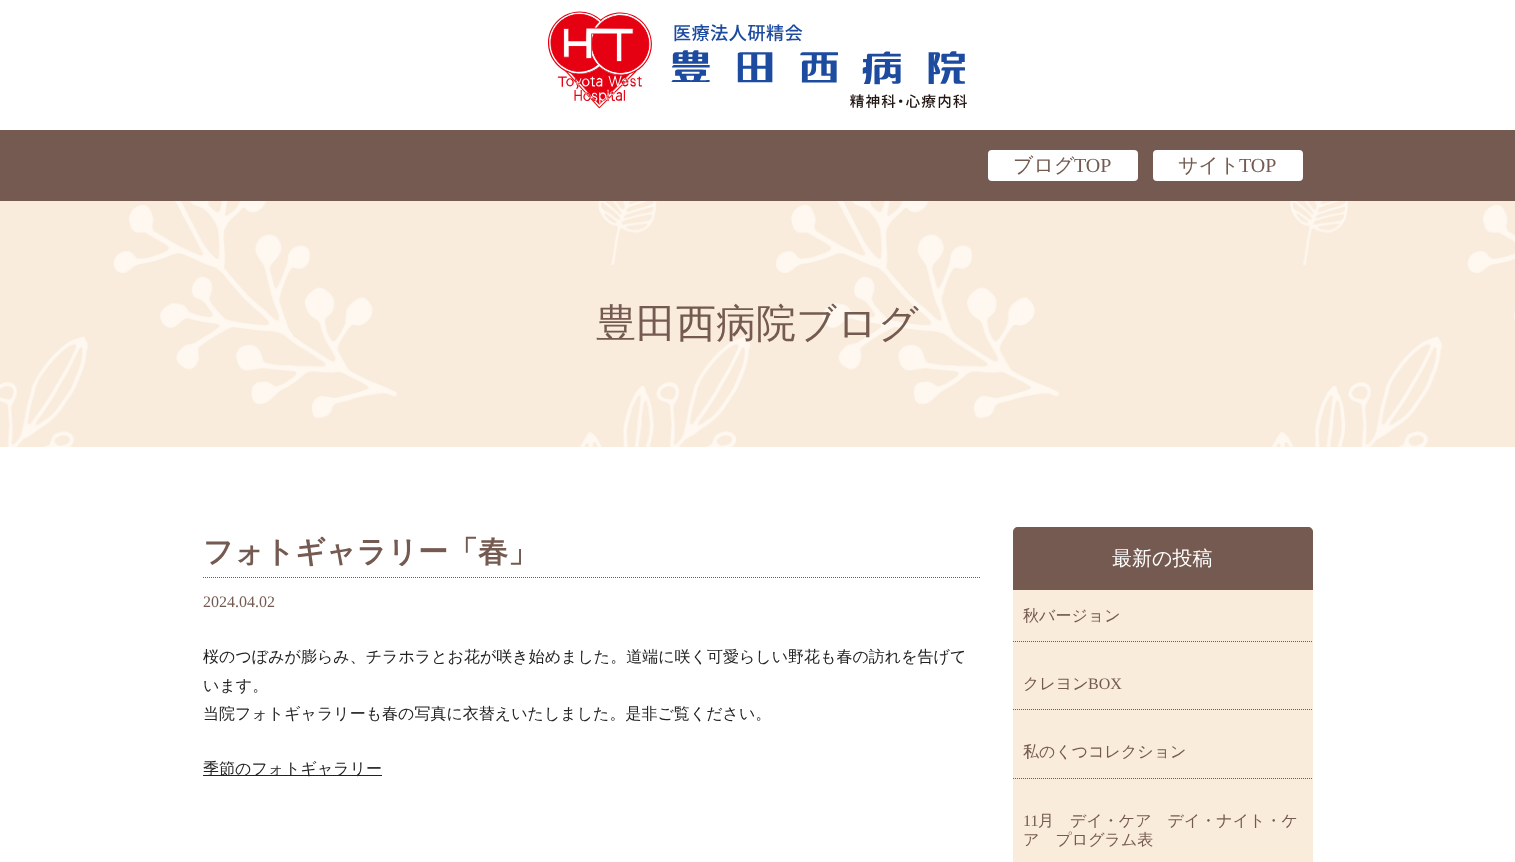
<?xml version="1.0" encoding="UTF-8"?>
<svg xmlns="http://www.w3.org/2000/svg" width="1515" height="862">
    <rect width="100%" height="100%" fill="#FFFFFF"/>
    <image x="548" y="11" width="419" height="98" href="img_01.png"/>
    <rect x="0" y="130" width="1515" height="71" fill="#745A50"/>
    <rect x="988" y="150" width="150" height="31" rx="4" fill="#FFFFFF"/>
    <text x="1013" y="172" font-family="WenQuanYi Zen Hei" font-size="20" font-weight="500" fill="#745A50">ブログ</text>
    <text x="1074" y="172" font-family="Liberation Serif" font-size="20" fill="#745A50">TOP</text>
    <rect x="1153" y="150" width="150" height="31" rx="4" fill="#FFFFFF"/>
    <text x="1178" y="172" font-family="WenQuanYi Zen Hei" font-size="20" font-weight="500" fill="#745A50">サイト</text>
    <text x="1239" y="172" font-family="Liberation Serif" font-size="20" fill="#745A50">TOP</text>
    <image x="0" y="201" width="1515" height="246" href="img_02.png"/>
    <text x="596" y="337" font-family="WenQuanYi Zen Hei" font-size="40" font-weight="500" fill="#745A50">豊田西病院ブログ</text>
    <path d="M 203 577.5 H 980" fill="none" stroke="#745A50" stroke-dasharray="1 1"/>
    <text x="203" y="562" font-family="WenQuanYi Zen Hei" font-size="30" font-weight="700" fill="#745A50">フォトギャラリー「春」</text>
    <text x="203" y="607" font-family="Liberation Serif" font-size="16" fill="#745A50">2024.04.02</text>
    <text font-family="WenQuanYi Zen Hei" font-size="16" font-weight="500" fill="#222222">
        <tspan x="203" y="662">桜のつぼみが膨らみ、チラホラとお花が咲き始めました。道端に咲く可愛らしい野花も春の訪れを告げて</tspan>
        <tspan x="203" y="691">います。</tspan>
        <tspan x="203" y="719">当院フォトギャラリーも春の写真に衣替えいたしました。是非ご覧ください。</tspan>
    </text>
    <rect x="203" y="775" width="179" height="1" fill="#222222"/>
    <text x="203" y="774" font-family="WenQuanYi Zen Hei" font-size="16" font-weight="500" fill="#222222">季節のフォトギャラリー</text>
    <path d="M 1018 527 H 1308 C 1311 527 1313 529 1313 532 V 590 H 1013 V 532 C 1013 529 1015 527 1018 527 Z" fill="#745A50"/>
    <text x="1112" y="565" font-family="WenQuanYi Zen Hei" font-size="20" font-weight="500" fill="#FFFFFF">最新の投稿</text>
    <rect x="1013" y="590" width="300" height="272" fill="#FAECDB"/>
    <path d="M 1013 641.5 H 1313" fill="none" stroke="#745A50" stroke-dasharray="1 1"/>
    <text x="1023" y="621" font-family="WenQuanYi Zen Hei" font-size="16" font-weight="500" fill="#745A50">秋バージョン</text>
    <path d="M 1013 709.5 H 1313" fill="none" stroke="#745A50" stroke-dasharray="1 1"/>
    <text x="1023" y="689" font-family="WenQuanYi Zen Hei" font-size="16" font-weight="500" fill="#745A50">クレヨン</text>
    <text x="1088" y="689" font-family="Liberation Serif" font-size="16" fill="#745A50">BOX</text>
    <path d="M 1013 778.5 H 1313" fill="none" stroke="#745A50" stroke-dasharray="1 1"/>
    <text x="1023" y="757" font-family="WenQuanYi Zen Hei" font-size="16" font-weight="500" fill="#745A50">私のくつコレクション</text>
    <text x="1023" y="826" font-family="Liberation Serif" font-size="16" fill="#745A50">11</text>
    <text x="1038" y="826" font-family="WenQuanYi Zen Hei" font-size="16" font-weight="500" fill="#745A50">月　デイ・ケア　デイ・ナイト・ケ</text>
    <text x="1023" y="845" font-family="WenQuanYi Zen Hei" font-size="16" font-weight="500" fill="#745A50">ア　プログラム表</text>
</svg>
